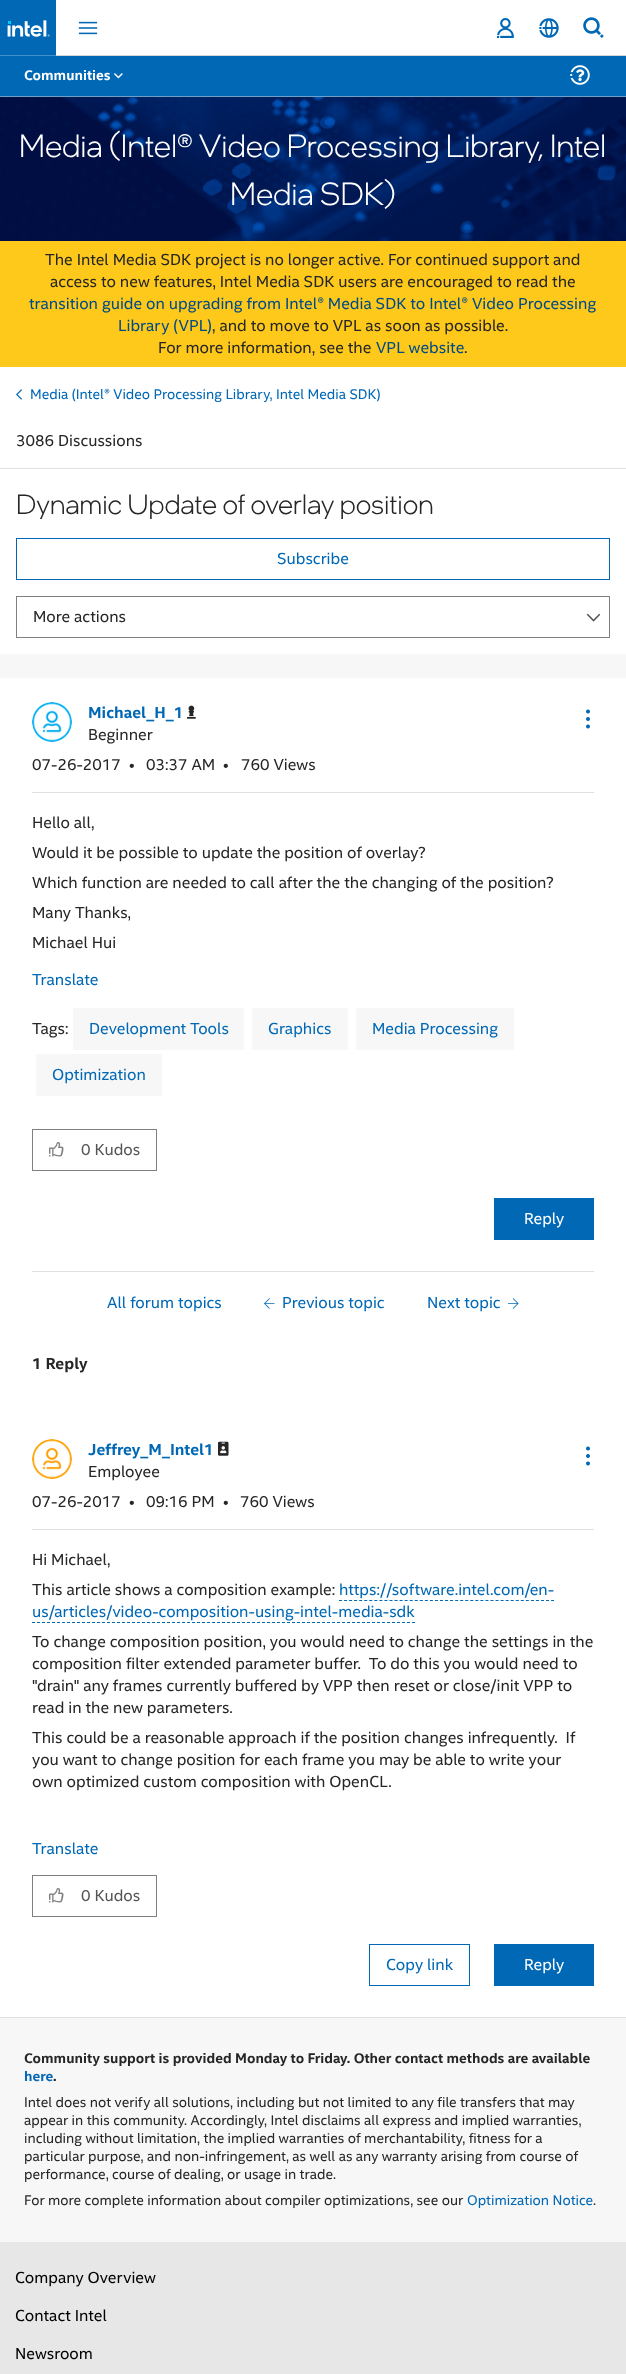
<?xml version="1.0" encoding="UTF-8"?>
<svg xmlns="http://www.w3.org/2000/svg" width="626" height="2374">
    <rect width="100%" height="100%" fill="#F7F7F7"/>
    <rect x="56" y="0" width="570" height="55" fill="#FFFFFF"/>
    <rect x="56" y="55" width="570" height="1" fill="#D7D7D7"/>
    <rect x="0" y="0" width="56" height="55" fill="#0068B5"/>
    <image x="7" y="20" width="43" height="17" href="img_01.png"/>
    <rect x="0" y="55" width="56" height="1" fill="#4290CB"/>
    <image x="78" y="21" width="20" height="14" href="img_02.png"/>
    <image x="497" y="18" width="17" height="20" href="img_03.png"/>
    <image x="539" y="18" width="20" height="20" href="img_04.png"/>
    <image x="583" y="17" width="21" height="21" href="img_05.png"/>
    <rect x="0" y="367" width="626" height="101" fill="#FFFFFF"/>
    <rect x="0" y="56" width="626" height="40" fill="#0068B5"/>
    <text x="24" y="80" font-family="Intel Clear" font-size="14" font-weight="700" fill="#FFFFFF">Communities</text>
    <image x="114" y="73" width="9" height="6" href="img_06.png"/>
    <image x="570" y="65" width="20" height="20" href="img_07.png"/>
    <image x="0" y="97" width="626" height="144" href="img_08.png"/>
    <rect x="0" y="96" width="626" height="1" fill="#6CA0C6"/>
    <text x="19" y="157" font-family="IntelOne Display" font-size="32" font-weight="300" fill="#FFFFFF">Media (Intel® Video Processing Library, Intel</text>
    <text x="230" y="205" font-family="IntelOne Display" font-size="32" font-weight="300" fill="#FFFFFF">Media SDK)</text>
    <rect x="0" y="241" width="626" height="126" fill="#FEC91B"/>
    <text x="45" y="265" font-family="Intel Clear" font-size="16" fill="#262626">The Intel Media SDK project is no longer active. For continued support and</text>
    <text x="50" y="287" font-family="Intel Clear" font-size="16" fill="#262626">access to new features, Intel Media SDK users are encouraged to read the</text>
    <text x="29" y="309" font-family="Intel Clear" font-size="16" fill="#004A86">transition guide on upgrading from Intel® Media SDK to Intel® Video Processing</text>
    <text x="118" y="331" font-family="Intel Clear" font-size="16" fill="#004A86">Library (VPL)</text>
    <text x="212" y="331" font-family="Intel Clear" font-size="16" fill="#262626">, and to move to VPL as soon as possible.</text>
    <text x="158" y="353" font-family="Intel Clear" font-size="16" fill="#262626">For more information, see the</text>
    <text x="376" y="353" font-family="Intel Clear" font-size="16" fill="#004A86">VPL website</text>
    <text x="464" y="353" font-family="Intel Clear" font-size="16" fill="#262626">.</text>
    <image x="16" y="389" width="6" height="11" href="img_09.png"/>
    <text x="30" y="399" font-family="Intel Clear" font-size="14" fill="#0068B5">Media (Intel® Video Processing Library, Intel Media SDK)</text>
    <text x="16" y="446" font-family="Intel Clear" font-size="16" fill="#262626">3086 Discussions</text>
    <rect x="0" y="469" width="626" height="185" fill="#FFFFFF"/>
    <rect x="0" y="468" width="626" height="1" fill="#E0E0E0"/>
    <text x="16" y="514" font-family="IntelOne Display" font-size="28" font-weight="300" fill="#262626">Dynamic Update of overlay position</text>
    <rect x="16.5" y="538.5" width="593" height="41" fill="none" stroke="#0068B5"/>
    <text x="277" y="564" font-family="Intel Clear" font-size="16" fill="#0068B5">Subscribe</text>
    <image x="586" y="613" width="15" height="9" href="img_10.png"/>
    <rect x="16.5" y="596.5" width="593" height="41" fill="none" stroke="#808080"/>
    <text x="33" y="622" font-family="Intel Clear" font-size="16" fill="#262626">More actions</text>
    <rect x="0" y="678" width="626" height="1339" fill="#FFFFFF"/>
    <rect x="32" y="792" width="562" height="1" fill="#E0E0E0"/>
    <image x="32" y="702" width="40" height="40" href="img_11.png"/>
    <text x="88" y="718" font-family="Intel Clear" font-size="16" font-weight="700" fill="#0068B5">Michael_H_1</text>
    <image x="187" y="705" width="9" height="14" href="img_12.png"/>
    <text x="88" y="740" font-family="Intel Clear" font-size="16" fill="#262626">Beginner</text>
    <text x="32" y="770" font-family="Intel Clear" font-size="16" fill="#262626">07-26-2017</text>
    <text x="129" y="770" font-family="Intel Clear" font-size="16" fill="#262626">•</text>
    <text x="146" y="770" font-family="Intel Clear" font-size="16" fill="#262626">03:37 AM</text>
    <text x="223" y="770" font-family="Intel Clear" font-size="16" fill="#262626">•</text>
    <text x="241" y="770" font-family="Intel Clear" font-size="16" fill="#262626">760 Views</text>
    <image x="586" y="709" width="4" height="20" href="img_13.png"/>
    <text font-family="Intel Clear" font-size="16" fill="#262626">
        <tspan x="32" y="828">Hello all,</tspan>
        <tspan x="32" y="858">Would it be possible to update the position of overlay?</tspan>
        <tspan x="32" y="888">Which function are needed to call after the the changing of the position?</tspan>
        <tspan x="32" y="918">Many Thanks,</tspan>
        <tspan x="32" y="948">Michael Hui</tspan>
    </text>
    <text x="32" y="985" font-family="Intel Clear" font-size="16" fill="#0068B5">Translate</text>
    <text x="32" y="1034" font-family="Intel Clear" font-size="16" fill="#262626">Tags:</text>
    <rect x="73" y="1008" width="171" height="42" fill="#F7F7F7"/>
    <text x="89" y="1034" font-family="Intel Clear" font-size="16" fill="#0068B5">Development Tools</text>
    <rect x="252" y="1008" width="96" height="42" fill="#F7F7F7"/>
    <text x="268" y="1034" font-family="Intel Clear" font-size="16" fill="#0068B5">Graphics</text>
    <rect x="356" y="1008" width="158" height="42" fill="#F7F7F7"/>
    <text x="372" y="1034" font-family="Intel Clear" font-size="16" fill="#0068B5">Media Processing</text>
    <rect x="36" y="1054" width="126" height="42" fill="#F7F7F7"/>
    <text x="52" y="1080" font-family="Intel Clear" font-size="16" fill="#0068B5">Optimization</text>
    <rect x="32.5" y="1129.5" width="124" height="41" fill="none" stroke="#808080"/>
    <image x="49" y="1142" width="15" height="15" href="img_14.png"/>
    <text x="81" y="1155" font-family="Intel Clear" font-size="16" fill="#555555">0 Kudos</text>
    <rect x="494" y="1198" width="100" height="42" fill="#0068B5"/>
    <text x="524" y="1224" font-family="Intel Clear" font-size="16" fill="#FFFFFF">Reply</text>
    <rect x="32" y="1271" width="562" height="1" fill="#E0E0E0"/>
    <text x="107" y="1308" font-family="Intel Clear" font-size="16" fill="#0068B5">All forum topics</text>
    <image x="264" y="1298" width="11" height="11" href="img_15.png"/>
    <text x="282" y="1308" font-family="Intel Clear" font-size="16" fill="#0068B5">Previous topic</text>
    <text x="427" y="1308" font-family="Intel Clear" font-size="16" fill="#0068B5">Next topic</text>
    <image x="508" y="1298" width="11" height="11" href="img_16.png"/>
    <text x="32" y="1369" font-family="Intel Clear" font-size="16" font-weight="700" fill="#262626">1 Reply</text>
    <rect x="32" y="1529" width="562" height="1" fill="#E0E0E0"/>
    <image x="32" y="1439" width="40" height="40" href="img_17.png"/>
    <text x="88" y="1455" font-family="Intel Clear" font-size="16" font-weight="700" fill="#0068B5">Jeffrey_M_Intel1</text>
    <image x="218" y="1441" width="11" height="15" href="img_18.png"/>
    <text x="88" y="1477" font-family="Intel Clear" font-size="16" fill="#262626">Employee</text>
    <text x="32" y="1507" font-family="Intel Clear" font-size="16" fill="#262626">07-26-2017</text>
    <text x="129" y="1507" font-family="Intel Clear" font-size="16" fill="#262626">•</text>
    <text x="146" y="1507" font-family="Intel Clear" font-size="16" fill="#262626">09:16 PM</text>
    <text x="223" y="1507" font-family="Intel Clear" font-size="16" fill="#262626">•</text>
    <text x="240" y="1507" font-family="Intel Clear" font-size="16" fill="#262626">760 Views</text>
    <image x="586" y="1446" width="4" height="20" href="img_13.png"/>
    <text font-family="Intel Clear" font-size="16" fill="#262626">
        <tspan x="32" y="1565">Hi Michael,</tspan>
        <tspan x="32" y="1595">This article shows a composition example:</tspan>
    </text>
    <text x="339" y="1595" font-family="Intel Clear" font-size="16" fill="#0068B5">https://software.intel.com/en-</text>
    <path d="M 339 1600.5 H 554" fill="none" stroke="#0068B5" stroke-dasharray="3 2.05"/>
    <text x="32" y="1617" font-family="Intel Clear" font-size="16" fill="#0068B5">us/articles/video-composition-using-intel-media-sdk</text>
    <path d="M 32 1622.5 H 415" fill="none" stroke="#0068B5" stroke-dasharray="3 2"/>
    <text font-family="Intel Clear" font-size="16" fill="#262626" xml:space="preserve"><tspan x="32" y="1647">To change composition position, you would need to change the settings in the</tspan><tspan x="32" y="1669">composition filter extended parameter buffer.  To do this you would need to</tspan><tspan x="32" y="1691">"drain" any frames currently buffered by VPP then reset or close/init VPP to</tspan><tspan x="32" y="1713">read in the new parameters.</tspan><tspan x="32" y="1743">This could be a reasonable approach if the position changes infrequently.  If</tspan><tspan x="32" y="1765">you want to change position for each frame you may be able to write your</tspan><tspan x="32" y="1787">own optimized custom composition with OpenCL.</tspan></text>
    <text x="32" y="1854" font-family="Intel Clear" font-size="16" fill="#0068B5">Translate</text>
    <rect x="32.5" y="1875.5" width="124" height="41" fill="none" stroke="#808080"/>
    <image x="49" y="1888" width="15" height="15" href="img_14.png"/>
    <text x="81" y="1901" font-family="Intel Clear" font-size="16" fill="#555555">0 Kudos</text>
    <rect x="369.5" y="1944.5" width="100" height="41" fill="none" stroke="#0068B5"/>
    <text x="386" y="1970" font-family="Intel Clear" font-size="16" fill="#0068B5">Copy link</text>
    <rect x="494" y="1944" width="100" height="42" fill="#0068B5"/>
    <text x="524" y="1970" font-family="Intel Clear" font-size="16" fill="#FFFFFF">Reply</text>
    <rect x="0" y="2017" width="626" height="1" fill="#E0E0E0"/>
    <text x="24" y="2063" font-family="Intel Clear" font-size="14" font-weight="700" fill="#262626">Community support is provided Monday to Friday. Other contact methods are available</text>
    <text x="24" y="2081" font-family="Intel Clear" font-size="14" font-weight="700" fill="#0068B5">here</text>
    <text x="53" y="2081" font-family="Intel Clear" font-size="14" font-weight="700" fill="#262626">.</text>
    <text font-family="Intel Clear" font-size="14" fill="#262626">
        <tspan x="24" y="2107">Intel does not verify all solutions, including but not limited to any file transfers that may</tspan>
        <tspan x="24" y="2125">appear in this community. Accordingly, Intel disclaims all express and implied warranties,</tspan>
        <tspan x="24" y="2143">including without limitation, the implied warranties of merchantability, fitness for a</tspan>
        <tspan x="24" y="2161">particular purpose, and non-infringement, as well as any warranty arising from course of</tspan>
        <tspan x="24" y="2179">performance, course of dealing, or usage in trade.</tspan>
        <tspan x="24" y="2205">For more complete information about compiler optimizations, see our</tspan>
    </text>
    <text x="467" y="2205" font-family="Intel Clear" font-size="14" fill="#0068B5">Optimization Notice</text>
    <text x="593" y="2205" font-family="Intel Clear" font-size="14" fill="#262626">.</text>
    <rect x="0" y="2242" width="626" height="132" fill="#E7E7E7"/>
    <text x="15" y="2283" font-family="Intel Clear" font-size="16" fill="#000000">Company Overview</text>
    <text x="15" y="2321" font-family="Intel Clear" font-size="16" fill="#000000">Contact Intel</text>
    <text x="15" y="2359" font-family="Intel Clear" font-size="16" fill="#000000">Newsroom</text>
</svg>
